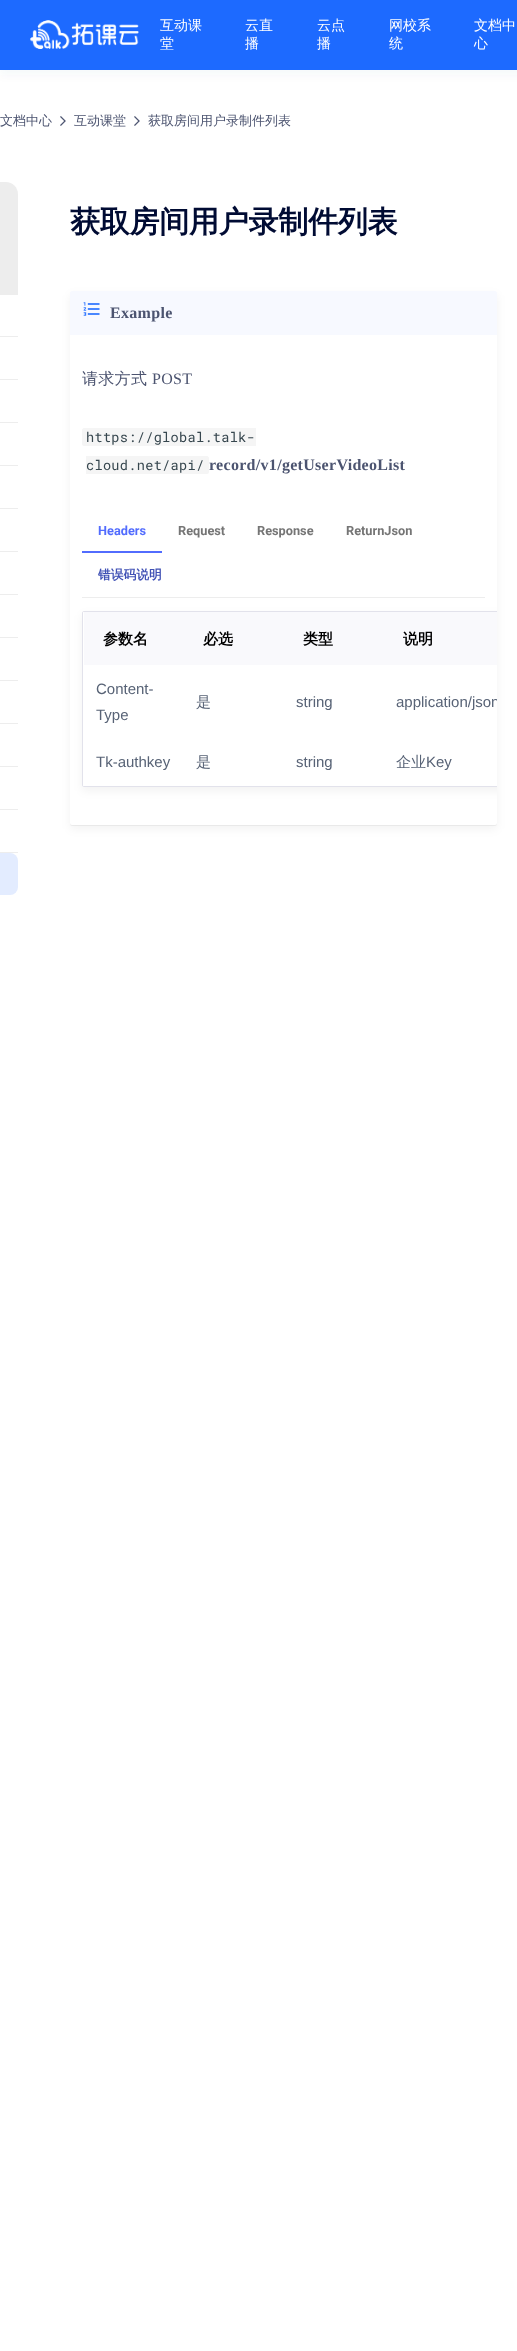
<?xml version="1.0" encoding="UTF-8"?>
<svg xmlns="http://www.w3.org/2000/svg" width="517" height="2351">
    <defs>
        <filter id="blur1" x="-50%" y="-200%" width="200%" height="500%"><feGaussianBlur stdDeviation="5"/></filter>
        <filter id="blur2" x="-50%" y="-200%" width="200%" height="500%"><feGaussianBlur stdDeviation="0.5"/></filter>
        <clipPath id="clip1"><rect x="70" y="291" width="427" height="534" rx="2"/></clipPath>
        <clipPath id="clip2"><rect x="70" y="291" width="427" height="534" rx="2"/></clipPath>
    </defs>
    <rect width="100%" height="100%" fill="#FFFFFF"/>
    <rect x="0" y="5" width="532" height="70" fill="#004080" fill-opacity="0.04" filter="url(#blur1)"/>
    <rect x="0" y="0" width="517" height="70" fill="#1D6AFF"/>
    <image x="30" y="20" width="109" height="29" href="img_01.png"/>
    <text font-family="WenQuanYi Zen Hei" font-size="14" font-weight="500" fill="#FFFFFF">
        <tspan x="160" y="30">互动课</tspan>
        <tspan x="160" y="48">堂</tspan>
    </text>
    <text font-family="WenQuanYi Zen Hei" font-size="14" font-weight="500" fill="#FFFFFF">
        <tspan x="245" y="30">云直</tspan>
        <tspan x="245" y="48">播</tspan>
    </text>
    <text font-family="WenQuanYi Zen Hei" font-size="14" font-weight="500" fill="#FFFFFF">
        <tspan x="317" y="30">云点</tspan>
        <tspan x="317" y="48">播</tspan>
    </text>
    <text font-family="WenQuanYi Zen Hei" font-size="14" font-weight="500" fill="#FFFFFF">
        <tspan x="389" y="30">网校系</tspan>
        <tspan x="389" y="48">统</tspan>
    </text>
    <text font-family="WenQuanYi Zen Hei" font-size="14" font-weight="500" fill="#FFFFFF">
        <tspan x="474" y="30">文档中</tspan>
        <tspan x="474" y="48">心</tspan>
    </text>
    <text x="0" y="125" font-family="WenQuanYi Zen Hei" font-size="13" font-weight="500" fill="#4C5470">文档中心</text>
    <image x="60" y="116" width="6" height="10" href="img_02.png"/>
    <text x="74" y="125" font-family="WenQuanYi Zen Hei" font-size="13" font-weight="500" fill="#4C5470">互动课堂</text>
    <image x="134" y="116" width="6" height="10" href="img_02.png"/>
    <text x="148" y="125" font-family="WenQuanYi Zen Hei" font-size="13" font-weight="500" fill="#4C5470">获取房间用户录制件列表</text>
    <path d="M 0 182 H 6 C 12.5 182 18 187.5 18 194 V 294 H -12 V 194 C -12 187.5 -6.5 182 0 182 Z" fill="#000000" fill-opacity="0.07"/>
    <rect x="0" y="294" width="18" height="1" fill="#EDEDED"/>
    <rect x="0" y="336" width="18" height="1" fill="#EDEDED"/>
    <rect x="0" y="379" width="18" height="1" fill="#EDEDED"/>
    <rect x="0" y="422" width="18" height="1" fill="#EDEDED"/>
    <rect x="0" y="465" width="18" height="1" fill="#EDEDED"/>
    <rect x="0" y="508" width="18" height="1" fill="#EDEDED"/>
    <rect x="0" y="551" width="18" height="1" fill="#EDEDED"/>
    <rect x="0" y="594" width="18" height="1" fill="#EDEDED"/>
    <rect x="0" y="637" width="18" height="1" fill="#EDEDED"/>
    <rect x="0" y="680" width="18" height="1" fill="#EDEDED"/>
    <rect x="0" y="723" width="18" height="1" fill="#EDEDED"/>
    <rect x="0" y="766" width="18" height="1" fill="#EDEDED"/>
    <rect x="0" y="809" width="18" height="1" fill="#EDEDED"/>
    <rect x="0" y="852" width="18" height="1" fill="#EDEDED"/>
    <rect x="-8" y="853" width="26" height="42" rx="8" fill="#E3ECFF"/>
    <text x="70" y="232" font-family="WenQuanYi Zen Hei" font-size="30" font-weight="700" letter-spacing="-0.25" fill="#000B33">获取房间用户录制件列表</text>
    <rect x="70" y="292" width="427" height="534" rx="2" fill="#000000" fill-opacity="0.05" filter="url(#blur2)"/>
    <rect x="70" y="295" width="427" height="534" rx="2" fill="#000000" fill-opacity="0.05" filter="url(#blur1)"/>
    <rect x="70" y="291" width="427" height="534" rx="2" fill="#FFFFFF"/>
    <path d="M 72 291 H 495 C 496 291 497 292 497 293 V 335 H 70 V 293 C 70 292 71 291 72 291 Z" fill="#F7F9FF"/>
    <image x="83" y="302" width="17" height="14" href="img_03.png"/>
    <text x="110" y="318" font-family="Liberation Serif" font-size="16" font-weight="700" letter-spacing="0.3" fill="#4C5470">Example</text>
    <text x="82" y="384" font-family="WenQuanYi Zen Hei" font-size="16" font-weight="500" letter-spacing="0.3" fill="#4C5470">请求方式</text>
    <text x="152" y="384" font-family="Liberation Serif" font-size="16" letter-spacing="0.3" fill="#4C5470">POST</text>
    <path d="M 84 428 H 256 V 446 H 84 C 83 446 82 445 82 444 V 430 C 82 429 83 428 84 428 Z" fill="#F5F5F5"/>
    <text x="86" y="442" font-family="Roboto Mono" font-size="13.6" letter-spacing="0.3" fill="#36464E">https://global.talk-</text>
    <path d="M 86 456 H 207 C 208 456 209 457 209 458 V 472 C 209 473 208 474 207 474 H 86 Z" fill="#F5F5F5"/>
    <text x="86" y="470" font-family="Roboto Mono" font-size="13.6" letter-spacing="0.3" fill="#36464E">cloud.net/api/</text>
    <text x="209" y="470" font-family="Liberation Serif" font-size="16" font-weight="700" letter-spacing="0.3" fill="#4C5470">record/v1/getUserVideoList</text>
    <rect x="82" y="551" width="80" height="2" fill="#526CFE"/>
    <text x="98" y="535" font-family="Roboto" font-size="12.75" font-weight="700" fill="#526CFE">Headers</text>
    <text x="178" y="535" font-family="Roboto" font-size="12.75" font-weight="700" fill="#757575">Request</text>
    <text x="257" y="535" font-family="Roboto" font-size="12.75" font-weight="700" fill="#757575">Response</text>
    <text x="346" y="535" font-family="Roboto" font-size="12.75" font-weight="700" fill="#757575">ReturnJson</text>
    <text x="98" y="579" font-family="WenQuanYi Zen Hei" font-size="12.75" font-weight="700" fill="#4051B5">错误码说明</text>
    <rect x="82" y="597" width="403" height="1" fill="#EDEDED"/>
    <g clip-path="url(#clip1)">
        <rect x="82" y="615" width="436" height="176" rx="2" fill="#000000" fill-opacity="0.05" filter="url(#blur1)"/>
    </g>
    <path d="M 84 611 H 497 V 787 H 84 C 83 787 82 786 82 785 V 613 C 82 612 83 611 84 611 Z" fill="#FFFFFF"/>
    <path d="M 84 611 C 83 611 82 612 82 613 V 785 C 82 786 83 787 84 787 H 497 V 786 H 84 C 83 786 83 786 83 785 V 613 C 83 612 83 612 84 612 H 497 V 611 Z" fill="#E2E2EB"/>
    <rect x="84" y="612" width="413" height="53" fill="#F9F9FC"/>
    <text x="103" y="644" font-family="WenQuanYi Zen Hei" font-size="15" font-weight="700" fill="#000000">参数名</text>
    <text x="203" y="644" font-family="WenQuanYi Zen Hei" font-size="15" font-weight="700" fill="#000000">必选</text>
    <text x="303" y="644" font-family="WenQuanYi Zen Hei" font-size="15" font-weight="700" fill="#000000">类型</text>
    <text x="403" y="644" font-family="WenQuanYi Zen Hei" font-size="15" font-weight="700" fill="#000000">说明</text>
    <text font-family="Liberation Sans" font-size="15" fill="#586376">
        <tspan x="96" y="694">Content-</tspan>
        <tspan x="96" y="720">Type</tspan>
    </text>
    <text x="196" y="707" font-family="WenQuanYi Zen Hei" font-size="15" font-weight="500" fill="#586376">是</text>
    <text x="296" y="707" font-family="Liberation Sans" font-size="15" fill="#586376">string</text>
    <g clip-path="url(#clip2)">
        <text x="396" y="707" font-family="Liberation Sans" font-size="15" fill="#586376">application/json</text>
    </g>
    <text x="96" y="767" font-family="Liberation Sans" font-size="15" fill="#586376">Tk-authkey</text>
    <text x="196" y="767" font-family="WenQuanYi Zen Hei" font-size="15" font-weight="500" fill="#586376">是</text>
    <text x="296" y="767" font-family="Liberation Sans" font-size="15" fill="#586376">string</text>
    <text x="396" y="767" font-family="WenQuanYi Zen Hei" font-size="15" font-weight="500" fill="#586376">企业</text>
    <text x="426" y="767" font-family="Liberation Sans" font-size="15" fill="#586376">Key</text>
</svg>
